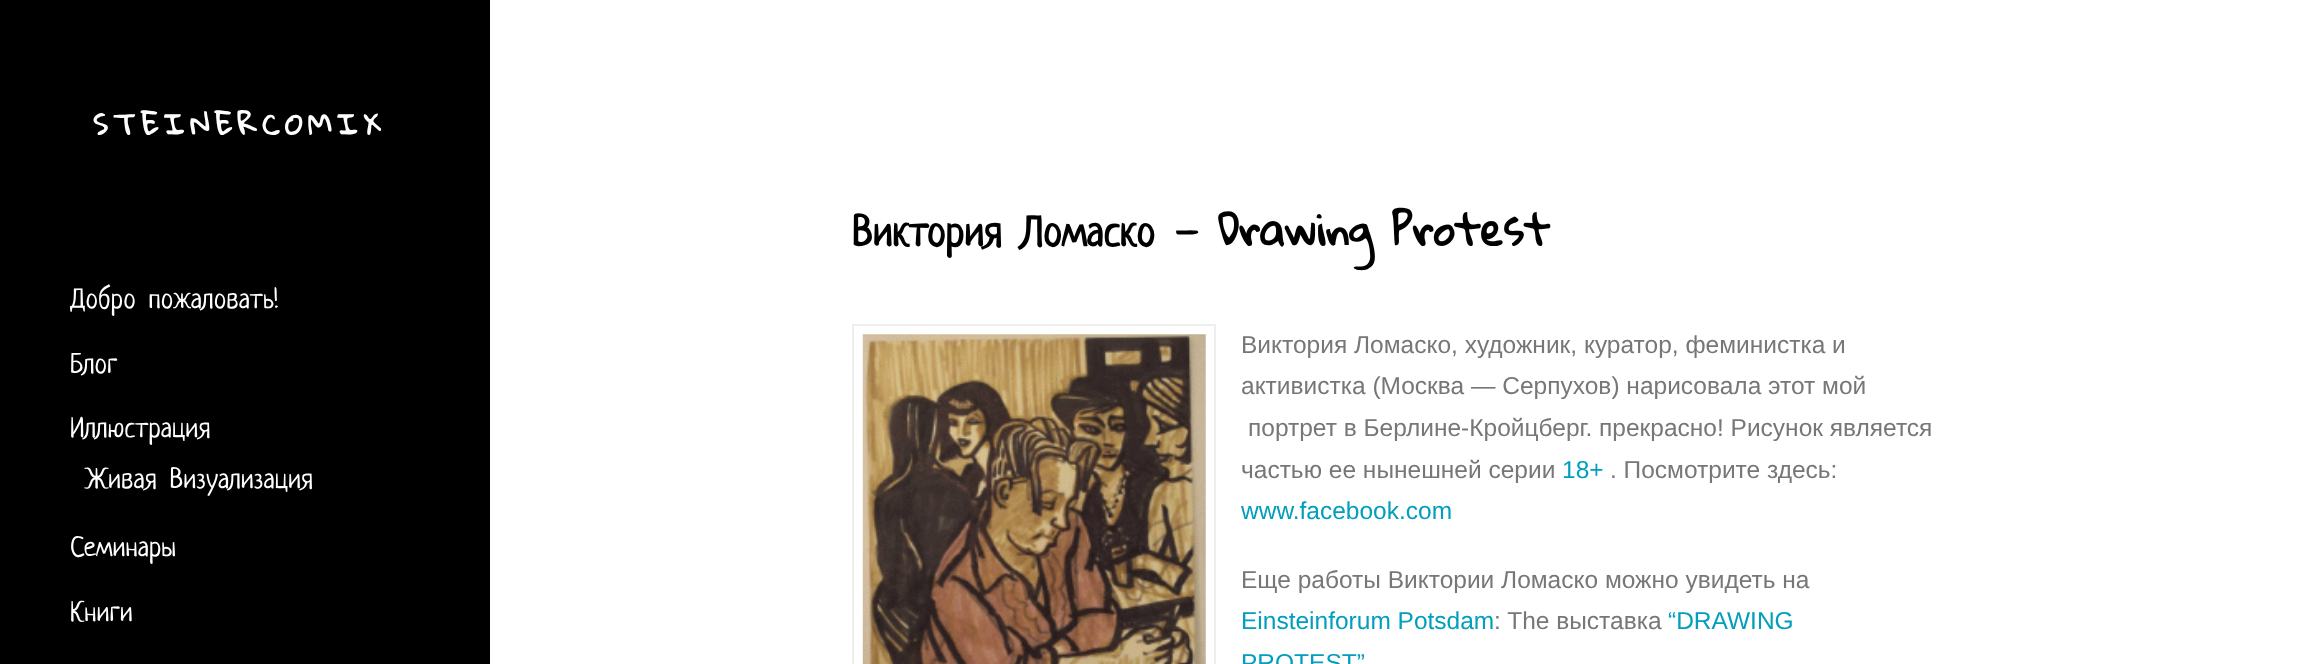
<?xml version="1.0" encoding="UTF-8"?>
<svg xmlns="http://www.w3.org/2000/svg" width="2298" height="664">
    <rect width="100%" height="100%" fill="#FFFFFF"/>
    <rect x="0" y="0" width="490" height="664" fill="#000000"/>
    <text x="93" y="135" font-family="Gloria Hallelujah" font-size="28" font-weight="700" letter-spacing="5.25" fill="#FFFFFF">STEINERCOMIX</text>
    <text x="70" y="308" word-spacing="5" font-family="Neucha" font-size="28" fill="#FFFFFF">Добро пожаловать</text>
    <text x="274" y="308" font-family="Gloria Hallelujah" font-size="28" fill="#FFFFFF">!</text>
    <text x="70" y="373" font-family="Neucha" font-size="28" fill="#FFFFFF">Блог</text>
    <text x="70" y="437" font-family="Neucha" font-size="28" fill="#FFFFFF">Иллюстрация</text>
    <text x="85" y="488" word-spacing="5" font-family="Neucha" font-size="28" fill="#FFFFFF">Живая Визуализация</text>
    <text x="70" y="556" font-family="Neucha" font-size="28" fill="#FFFFFF">Семинары</text>
    <text x="70" y="621" font-family="Neucha" font-size="28" fill="#FFFFFF">Книги</text>
    <text x="852" y="246" font-family="Neucha" font-size="42" font-weight="700" fill="#000000">Виктория</text>
    <text x="1021" y="246" font-family="Neucha" font-size="42" font-weight="700" fill="#000000">Ломаско</text>
    <text x="1173" y="246" font-family="Gloria Hallelujah" font-size="42" font-weight="700" fill="#000000">— Drawing Protest</text>
    <rect x="853" y="325" width="362" height="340" fill="none" stroke="#EEEEEE" stroke-width="2"/>
    <image x="862" y="334" width="344" height="330" href="img_01.png"/>
    <text font-family="Liberation Sans" font-size="24.5" fill="#777777">
        <tspan x="1241" y="353">Виктория Ломаско, художник, куратор, феминистка и</tspan>
        <tspan x="1241" y="394">активистка (Москва — Серпухов) нарисовала этот мой</tspan>
    </text>
    <text x="1248" y="436" font-family="Liberation Sans" font-size="24.5" fill="#777777">портрет в Берлине-Кройцберг. прекрaсно! Рисунок является</text>
    <text x="1241" y="478" font-family="Liberation Sans" font-size="24.5" fill="#777777">частью ее нынешней серии</text>
    <text x="1562" y="478" font-family="Liberation Sans" font-size="24.5" fill="#019EBD">18+</text>
    <text x="1610" y="478" font-family="Liberation Sans" font-size="24.5" fill="#777777">. Посмотрите здесь:</text>
    <text x="1241" y="519" font-family="Liberation Sans" font-size="24.5" fill="#019EBD">www.facebook.com</text>
    <text x="1241" y="588" font-family="Liberation Sans" font-size="24.5" fill="#777777">Еще работы Виктории Ломаско можно увидеть на</text>
    <text x="1241" y="629" font-family="Liberation Sans" font-size="24.5" fill="#019EBD">Einsteinforum Potsdam</text>
    <text x="1494" y="629" font-family="Liberation Sans" font-size="24.5" fill="#777777">: The выставка</text>
    <text x="1668" y="629" font-family="Liberation Sans" font-size="24.5" fill="#019EBD">“DRAWING</text>
    <text x="1241" y="671" font-family="Liberation Sans" font-size="24.5" fill="#019EBD">PROTEST”</text>
</svg>
